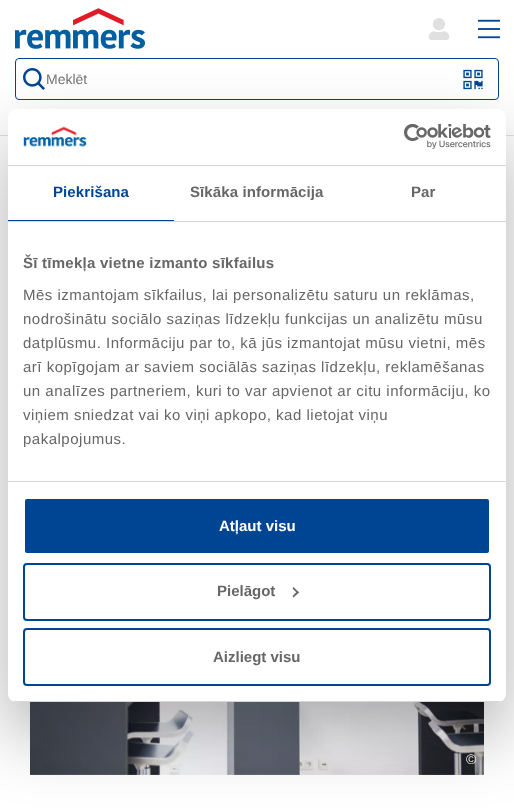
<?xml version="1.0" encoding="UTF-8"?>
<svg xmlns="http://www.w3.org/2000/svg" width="514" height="810">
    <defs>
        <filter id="blur1" x="-50%" y="-200%" width="200%" height="500%"><feGaussianBlur stdDeviation="34"/></filter>
        <clipPath id="clip1"><rect x="8" y="109" width="498" height="593" rx="8"/></clipPath>
    </defs>
    <rect width="100%" height="100%" fill="#FFFFFF"/>
    <image x="15" y="8" width="130" height="41" href="img_01.png"/>
    <image x="428" y="18" width="22" height="22" href="img_02.png"/>
    <image x="478" y="19" width="22" height="20" href="img_03.png"/>
    <rect x="15.5" y="58.5" width="483" height="41" rx="3.5" fill="none" stroke="#004494"/>
    <image x="23" y="68" width="22" height="22" href="img_04.png"/>
    <text x="46" y="84" font-family="Liberation Sans" font-size="14" fill="#757575">Meklēt</text>
    <image x="463" y="69" width="20" height="21" href="img_05.png"/>
    <rect x="0" y="135" width="514" height="1" fill="#E0E0E0"/>
    <image x="30" y="702" width="454" height="73" href="img_06.png"/>
    <text x="466" y="764" font-family="Liberation Sans" font-size="14" fill="#FFFFFF">©</text>
    <rect x="8" y="141" width="498" height="593" rx="8" fill="#000000" fill-opacity="0.3" filter="url(#blur1)"/>
    <rect x="8" y="109" width="498" height="593" rx="8" fill="#FFFFFF"/>
    <rect x="8" y="165" width="498" height="1" fill="#D6D6D6"/>
    <image x="23" y="126" width="64" height="21" href="img_07.png"/>
    <image x="404" y="124" width="87" height="25" href="img_08.png"/>
    <rect x="8" y="221" width="498" height="1" fill="#D6D6D6"/>
    <rect x="8" y="220" width="166" height="1" fill="#004494"/>
    <text x="53" y="197" font-family="Liberation Sans" font-size="15" font-weight="700" letter-spacing="0.1" fill="#004494">Piekrišana</text>
    <text x="190" y="197" font-family="Liberation Sans" font-size="15" font-weight="700" letter-spacing="0.1" fill="#676767">Sīkāka informācija</text>
    <text x="411" y="197" font-family="Liberation Sans" font-size="15" font-weight="700" letter-spacing="0.1" fill="#676767">Par</text>
    <rect x="8" y="481" width="498" height="1" fill="#D6D6D6"/>
    <text x="23" y="268" font-family="Liberation Sans" font-size="15" font-weight="700" letter-spacing="0.25" fill="#676767">Šī tīmekļa vietne izmanto sīkfailus</text>
    <text font-family="Liberation Sans" font-size="15" letter-spacing="0.5" fill="#676767">
        <tspan x="23" y="300">Mēs izmantojam sīkfailus, lai personalizētu saturu un reklāmas,</tspan>
        <tspan x="23" y="324">nodrošinātu sociālo saziņas līdzekļu funkcijas un analizētu mūsu</tspan>
        <tspan x="23" y="348">datplūsmu. Informāciju par to, kā jūs izmantojat mūsu vietni, mēs</tspan>
        <tspan x="23" y="372">arī kopīgojam ar saviem sociālās saziņas līdzekļu, reklamēšanas</tspan>
        <tspan x="23" y="396">un analīzes partneriem, kuri to var apvienot ar citu informāciju, ko</tspan>
        <tspan x="23" y="420">viņiem sniedzat vai ko viņi apkopo, kad lietojat viņu</tspan>
        <tspan x="23" y="444">pakalpojumus.</tspan>
    </text>
    <g clip-path="url(#clip1)">
        <rect x="8" y="701" width="498" height="1" fill="#D6D6D6"/>
    </g>
    <rect x="24" y="498" width="466" height="56" rx="3" fill="#004494" stroke="#FFFFFF" stroke-width="2"/>
    <text x="219" y="531" font-family="Liberation Sans" font-size="15" font-weight="700" fill="#FFFFFF">Atļaut visu</text>
    <rect x="24" y="564" width="466" height="56" rx="3" fill="none" stroke="#004494" stroke-width="2"/>
    <text x="217" y="596" font-family="Liberation Sans" font-size="15" font-weight="700" fill="#676767">Pielāgot</text>
    <path d="M 293.5 587 L 299 592.5 L 297.5 593.5 L 292.5 588.5 Z" fill="#676767"/>
    <path d="M 297.5 591 L 299 592.5 L 293.5 597.5 L 292.5 596 Z" fill="#676767"/>
    <rect x="24" y="629" width="466" height="56" rx="3" fill="none" stroke="#004494" stroke-width="2"/>
    <text x="213" y="662" font-family="Liberation Sans" font-size="15" font-weight="700" fill="#676767">Aizliegt visu</text>
</svg>
